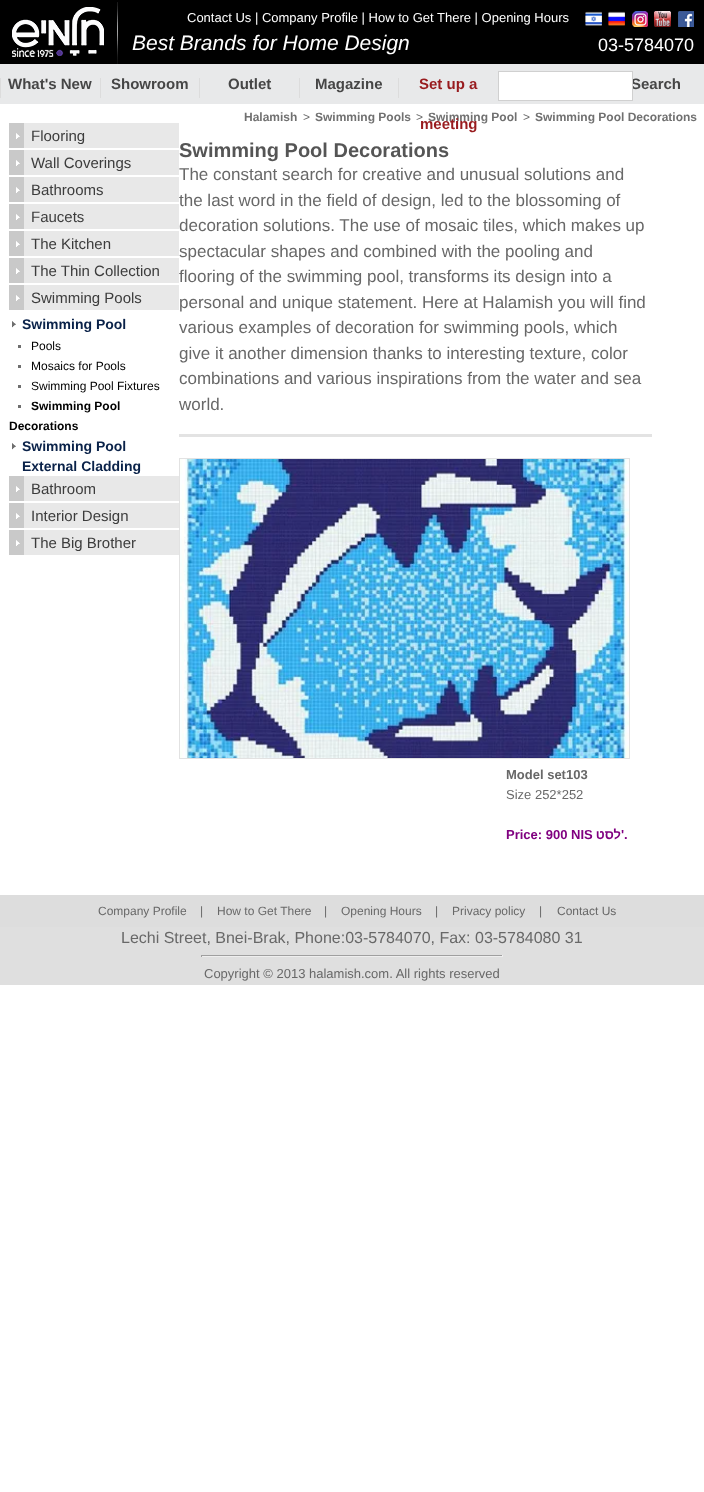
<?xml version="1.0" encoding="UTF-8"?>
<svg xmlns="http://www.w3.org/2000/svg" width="704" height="1492">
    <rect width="100%" height="100%" fill="#FFFFFF"/>
    <rect x="0" y="0" width="704" height="64" fill="#000000"/>
    <image x="12" y="7" width="92" height="50" href="img_01.png"/>
    <image x="117" y="2" width="1" height="62" href="img_02.png"/>
    <text x="187" y="22" font-family="Liberation Sans" font-size="13" fill="#FFFFFF">Contact Us | Company Profile | How to Get There | Opening Hours</text>
    <image x="585" y="11" width="17" height="15" href="img_03.png"/>
    <image x="608" y="11" width="17" height="15" href="img_04.png"/>
    <image x="632" y="11" width="16" height="16" href="img_05.png"/>
    <image x="654" y="11" width="17" height="16" href="img_06.png"/>
    <image x="678" y="11" width="16" height="16" href="img_07.png"/>
    <text x="132" y="50" font-family="Liberation Sans" font-size="21" font-style="italic" fill="#FFFFFF">Best Brands for Home Design</text>
    <text x="598" y="51" font-family="Liberation Sans" font-size="18" fill="#FFFFFF">03-5784070</text>
    <rect x="0" y="64" width="704" height="40" fill="#E8E9EA"/>
    <rect x="0" y="78" width="1" height="20" fill="#DCDCDC"/>
    <text x="8" y="89" font-family="Liberation Sans" font-size="15" font-weight="700" fill="#464646">What's New</text>
    <rect x="100" y="78" width="1" height="20" fill="#DCDCDC"/>
    <text x="111" y="89" font-family="Liberation Sans" font-size="15" font-weight="700" fill="#464646">Showroom</text>
    <rect x="199" y="78" width="1" height="20" fill="#DCDCDC"/>
    <text x="228" y="89" font-family="Liberation Sans" font-size="15" font-weight="700" fill="#464646">Outlet</text>
    <rect x="299" y="78" width="1" height="20" fill="#DCDCDC"/>
    <text x="315" y="89" font-family="Liberation Sans" font-size="15" font-weight="700" fill="#464646">Magazine</text>
    <rect x="398" y="78" width="1" height="20" fill="#DCDCDC"/>
    <text x="419" y="89" font-family="Liberation Sans" font-size="15" font-weight="700" fill="#981B1E">Set up a</text>
    <text x="416" y="121" font-family="Liberation Sans" font-size="12" fill="#686868">&gt;</text>
    <text x="428" y="121" font-family="Liberation Sans" font-size="12" font-weight="700" fill="#707070">Swimming Pool</text>
    <text x="420" y="129" font-family="Liberation Sans" font-size="15" font-weight="700" fill="#981B1E">meeting</text>
    <text x="631" y="89" font-family="Liberation Sans" font-size="15" font-weight="700" fill="#464646">Search</text>
    <rect x="498.5" y="71.5" width="134" height="29" fill="#FFFFFF" stroke="#D0D0D0"/>
    <text x="244" y="121" font-family="Liberation Sans" font-size="12" font-weight="700" fill="#707070">Halamish</text>
    <text x="303" y="121" font-family="Liberation Sans" font-size="12" fill="#686868">&gt;</text>
    <text x="315" y="121" font-family="Liberation Sans" font-size="12" font-weight="700" fill="#707070">Swimming Pools</text>
    <text x="523" y="121" font-family="Liberation Sans" font-size="12" fill="#686868">&gt;</text>
    <text x="535" y="121" font-family="Liberation Sans" font-size="12" font-weight="700" fill="#707070">Swimming Pool Decorations</text>
    <rect x="9" y="123" width="15" height="25" fill="#C9C9C9"/>
    <image x="16" y="133" width="4" height="6" href="img_08.png"/>
    <rect x="24" y="123" width="155" height="25" fill="#E8E8E8"/>
    <text x="31" y="141" font-family="Liberation Sans" font-size="15" fill="#3C3C3C">Flooring</text>
    <rect x="9" y="150" width="15" height="25" fill="#C9C9C9"/>
    <image x="16" y="160" width="4" height="6" href="img_08.png"/>
    <rect x="24" y="150" width="155" height="25" fill="#E8E8E8"/>
    <text x="31" y="168" font-family="Liberation Sans" font-size="15" fill="#3C3C3C">Wall Coverings</text>
    <rect x="9" y="177" width="15" height="25" fill="#C9C9C9"/>
    <image x="16" y="187" width="4" height="6" href="img_08.png"/>
    <rect x="24" y="177" width="155" height="25" fill="#E8E8E8"/>
    <text x="31" y="195" font-family="Liberation Sans" font-size="15" fill="#3C3C3C">Bathrooms</text>
    <rect x="9" y="204" width="15" height="25" fill="#C9C9C9"/>
    <image x="16" y="214" width="4" height="6" href="img_08.png"/>
    <rect x="24" y="204" width="155" height="25" fill="#E8E8E8"/>
    <text x="31" y="222" font-family="Liberation Sans" font-size="15" fill="#3C3C3C">Faucets</text>
    <rect x="9" y="231" width="15" height="25" fill="#C9C9C9"/>
    <image x="16" y="241" width="4" height="6" href="img_08.png"/>
    <rect x="24" y="231" width="155" height="25" fill="#E8E8E8"/>
    <text x="31" y="249" font-family="Liberation Sans" font-size="15" fill="#3C3C3C">The Kitchen</text>
    <rect x="9" y="258" width="15" height="25" fill="#C9C9C9"/>
    <image x="16" y="268" width="4" height="6" href="img_08.png"/>
    <rect x="24" y="258" width="155" height="25" fill="#E8E8E8"/>
    <text x="31" y="276" font-family="Liberation Sans" font-size="15" fill="#3C3C3C">The Thin Collection</text>
    <rect x="9" y="285" width="15" height="25" fill="#C9C9C9"/>
    <image x="16" y="295" width="4" height="6" href="img_08.png"/>
    <rect x="24" y="285" width="155" height="25" fill="#E8E8E8"/>
    <text x="31" y="303" font-family="Liberation Sans" font-size="15" fill="#3C3C3C">Swimming Pools</text>
    <image x="12" y="321" width="4" height="7" href="img_09.png"/>
    <text x="22" y="329" font-family="Liberation Sans" font-size="14" font-weight="700" fill="#0A2249">Swimming Pool</text>
    <rect x="18" y="345" width="3" height="3" fill="#6E6E6E"/>
    <text x="31" y="350" font-family="Liberation Sans" font-size="12" fill="#000000">Pools</text>
    <rect x="18" y="365" width="3" height="3" fill="#6E6E6E"/>
    <text x="31" y="370" font-family="Liberation Sans" font-size="12" fill="#000000">Mosaics for Pools</text>
    <rect x="18" y="385" width="3" height="3" fill="#6E6E6E"/>
    <text x="31" y="390" font-family="Liberation Sans" font-size="12" fill="#000000">Swimming Pool Fixtures</text>
    <rect x="18" y="405" width="3" height="3" fill="#6E6E6E"/>
    <text x="31" y="410" font-family="Liberation Sans" font-size="12" font-weight="700" fill="#000000">Swimming Pool</text>
    <text x="9" y="430" font-family="Liberation Sans" font-size="12" font-weight="700" fill="#000000">Decorations</text>
    <image x="12" y="443" width="4" height="7" href="img_09.png"/>
    <text font-family="Liberation Sans" font-size="14" font-weight="700" fill="#0A2249">
        <tspan x="22" y="451">Swimming Pool</tspan>
        <tspan x="22" y="471">External Cladding</tspan>
    </text>
    <rect x="9" y="476" width="15" height="25" fill="#C9C9C9"/>
    <image x="16" y="486" width="4" height="6" href="img_08.png"/>
    <rect x="24" y="476" width="155" height="25" fill="#E8E8E8"/>
    <text x="31" y="494" font-family="Liberation Sans" font-size="15" fill="#3C3C3C">Bathroom</text>
    <rect x="9" y="503" width="15" height="25" fill="#C9C9C9"/>
    <image x="16" y="513" width="4" height="6" href="img_08.png"/>
    <rect x="24" y="503" width="155" height="25" fill="#E8E8E8"/>
    <text x="31" y="521" font-family="Liberation Sans" font-size="15" fill="#3C3C3C">Interior Design</text>
    <rect x="9" y="530" width="15" height="25" fill="#C9C9C9"/>
    <image x="16" y="540" width="4" height="6" href="img_08.png"/>
    <rect x="24" y="530" width="155" height="25" fill="#E8E8E8"/>
    <text x="31" y="548" font-family="Liberation Sans" font-size="15" fill="#3C3C3C">The Big Brother</text>
    <text x="179" y="157" font-family="Liberation Sans" font-size="20" font-weight="700" fill="#555555">Swimming Pool Decorations</text>
    <text font-family="Liberation Sans" font-size="17" fill="#686868">
        <tspan x="179" y="180">The constant search for creative and unusual solutions and</tspan>
        <tspan x="179" y="206">the last word in the field of design, led to the blossoming of</tspan>
        <tspan x="179" y="231">decoration solutions. The use of mosaic tiles, which makes up</tspan>
        <tspan x="179" y="257">spectacular shapes and combined with the pooling and</tspan>
        <tspan x="179" y="282">flooring of the swimming pool, transforms its design into a</tspan>
        <tspan x="179" y="308">personal and unique statement. Here at Halamish you will find</tspan>
        <tspan x="179" y="333">various examples of decoration for swimming pools, which</tspan>
        <tspan x="179" y="359">give it another dimension thanks to interesting texture, color</tspan>
        <tspan x="179" y="384">combinations and various inspirations from the water and sea</tspan>
        <tspan x="179" y="410">world.</tspan>
    </text>
    <rect x="179" y="434" width="473" height="3" fill="#E3E3E3"/>
    <rect x="179.5" y="458.5" width="450" height="300" fill="none" stroke="#E2E2E2"/>
    <image x="180" y="459" width="449" height="299" href="img_10.png"/>
    <text x="506" y="779" font-family="Liberation Sans" font-size="13" font-weight="700" fill="#686868">Model set103</text>
    <text x="506" y="799" font-family="Liberation Sans" font-size="13" fill="#686868">Size 252*252</text>
    <text x="506" y="839" font-family="Liberation Sans" font-size="13" font-weight="700" fill="#800080">Price: 900 NIS</text>
    <text x="621" y="839" font-family="Liberation Sans" font-size="13" font-weight="700" direction="rtl" fill="#800080">לסט</text>
    <text x="621" y="839" font-family="Liberation Sans" font-size="13" font-weight="700" fill="#800080">'.</text>
    <rect x="0" y="927" width="704" height="58" fill="#DFDFDF"/>
    <rect x="0" y="895" width="704" height="32" fill="#DDDDDD"/>
    <text x="98" y="915" font-family="Liberation Sans" font-size="12" fill="#686868">Company Profile</text>
    <text x="200" y="915" font-family="Liberation Sans" font-size="12" fill="#686868">|</text>
    <text x="217" y="915" font-family="Liberation Sans" font-size="12" fill="#686868">How to Get There</text>
    <text x="324" y="915" font-family="Liberation Sans" font-size="12" fill="#686868">|</text>
    <text x="341" y="915" font-family="Liberation Sans" font-size="12" fill="#686868">Opening Hours</text>
    <text x="435" y="915" font-family="Liberation Sans" font-size="12" fill="#686868">|</text>
    <text x="452" y="915" font-family="Liberation Sans" font-size="12" fill="#686868">Privacy policy</text>
    <text x="539" y="915" font-family="Liberation Sans" font-size="12" fill="#686868">|</text>
    <text x="557" y="915" font-family="Liberation Sans" font-size="12" fill="#686868">Contact Us</text>
    <text x="121" y="943" font-family="Liberation Sans" font-size="16" fill="#686868">Lechi Street, Bnei-Brak, Phone:03-5784070, Fax: 03-5784080 31</text>
    <rect x="201" y="955" width="302" height="1" fill="#9F9F9F"/>
    <rect x="502" y="955" width="1" height="2" fill="#EEEEEE"/>
    <rect x="201" y="956" width="302" height="1" fill="#EEEEEE"/>
    <rect x="201" y="955" width="1" height="2" fill="#9F9F9F"/>
    <text x="204" y="978" font-family="Liberation Sans" font-size="13" fill="#686868">Copyright © 2013 halamish.com. All rights reserved</text>
</svg>
